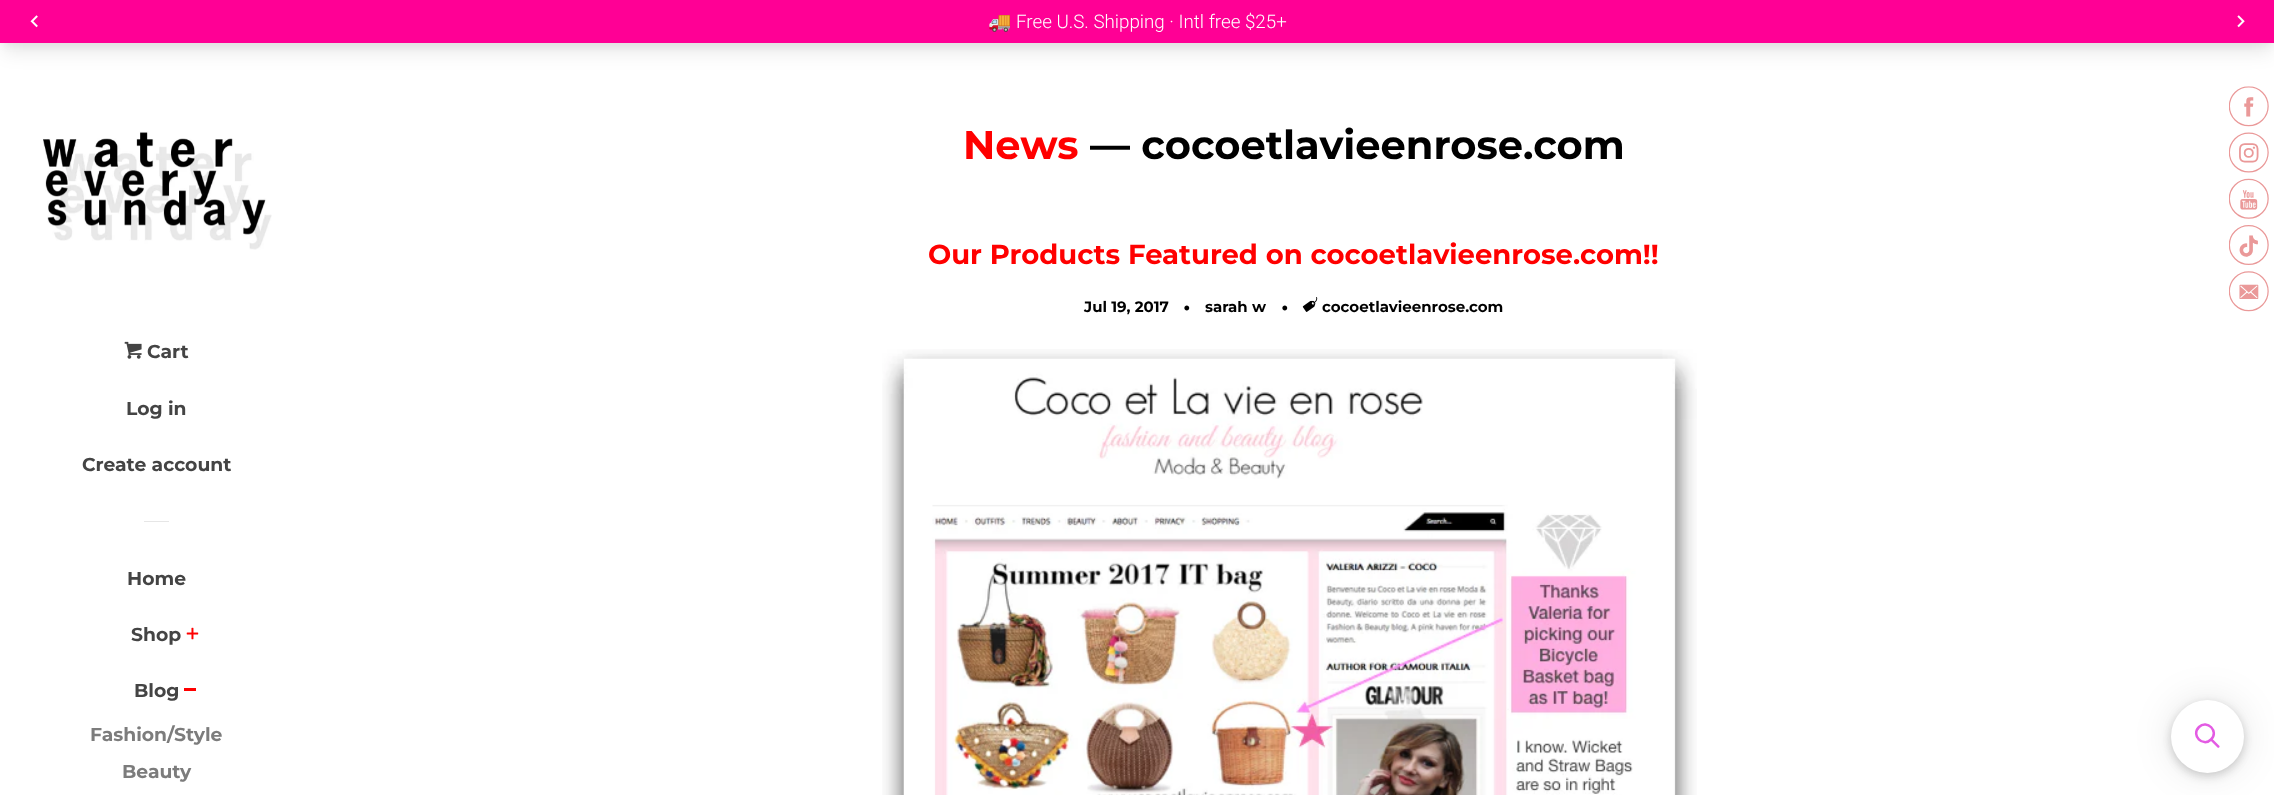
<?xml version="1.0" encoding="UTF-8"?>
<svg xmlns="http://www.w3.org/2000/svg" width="2274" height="795">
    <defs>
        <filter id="blur1" x="-50%" y="-200%" width="200%" height="500%"><feGaussianBlur stdDeviation="4"/></filter>
        <filter id="blur2" x="-50%" y="-200%" width="200%" height="500%"><feGaussianBlur stdDeviation="9.5"/></filter>
        <filter id="blur3" x="-50%" y="-200%" width="200%" height="500%"><feGaussianBlur stdDeviation="5"/></filter>
        <filter id="blur4" x="-50%" y="-200%" width="200%" height="500%"><feGaussianBlur stdDeviation="19"/></filter>
    </defs>
    <rect width="100%" height="100%" fill="#FFFFFF"/>
    <rect x="3" y="8" width="2270" height="37" fill="#000000" fill-opacity="0.05" filter="url(#blur1)"/>
    <rect x="4" y="16" width="2267" height="35" fill="#000000" fill-opacity="0.1" filter="url(#blur2)"/>
    <rect x="0" y="0" width="2274" height="43" fill="#FF0095"/>
    <image x="30" y="15" width="8" height="13" href="img_01.png"/>
    <text x="988" y="28" font-family="Noto Color Emoji" font-size="18.75" fill="#FFFFFF">🚚</text>
    <text x="1016" y="28" font-family="Roboto" font-size="18.75" font-weight="300" fill="#FFFFFF">Free U.S. Shipping · Intl free $25+</text>
    <image x="2237" y="15" width="8" height="13" href="img_02.png"/>
    <text x="963" y="159" font-family="Montserrat" font-size="40" font-weight="100" fill="#FF0000">News</text>
    <text x="1090" y="159" font-family="Montserrat" font-size="40" font-weight="100" fill="#000000">— cocoetlavieenrose.com</text>
    <text x="928" y="264" font-family="Montserrat" font-size="27.5" font-weight="100" fill="#FF0000">Our Products Featured on cocoetlavieenrose.com!!</text>
    <text x="1084" y="312" font-family="Montserrat" font-size="15" font-weight="100" fill="#000000">Jul 19, 2017</text>
    <text x="1183" y="315" font-family="Montserrat" font-size="25" font-weight="100" fill="#000000">·</text>
    <text x="1205" y="312" font-family="Montserrat" font-size="15" font-weight="100" fill="#000000">sarah w</text>
    <text x="1281" y="315" font-family="Montserrat" font-size="25" font-weight="100" fill="#000000">·</text>
    <image x="1302" y="297" width="16" height="15" href="img_03.png"/>
    <text x="1322" y="312" font-family="Montserrat" font-size="15" font-weight="100" fill="#000000">cocoetlavieenrose.com</text>
    <image x="882" y="349" width="815" height="446" href="img_04.png"/>
    <image x="2229" y="86" width="40" height="226" href="img_05.png"/>
    <image x="43" y="131" width="229" height="119" href="img_06.png"/>
    <image x="124" y="341" width="18" height="18" href="img_07.png"/>
    <text x="147" y="358" font-family="Montserrat" font-size="18.75" font-weight="100" fill="#444444">Cart</text>
    <text x="126" y="415" font-family="Montserrat" font-size="18.75" font-weight="100" fill="#444444">Log in</text>
    <text x="82" y="471" font-family="Montserrat" font-size="18.75" font-weight="100" fill="#444444">Create account</text>
    <rect x="144" y="521" width="25" height="1" fill="#E6E6E6"/>
    <text x="127" y="585" font-family="Montserrat" font-size="18.75" font-weight="100" fill="#444444">Home</text>
    <text x="131" y="641" font-family="Montserrat" font-size="18.75" font-weight="100" fill="#444444">Shop</text>
    <image x="186" y="627" width="13" height="13" href="img_08.png"/>
    <text x="134" y="697" font-family="Montserrat" font-size="18.75" font-weight="100" fill="#444444">Blog</text>
    <rect x="184" y="688" width="12" height="3" fill="#FF0000"/>
    <text x="90" y="741" font-family="Montserrat" font-size="18.75" font-weight="100" fill="#7C7C7C">Fashion/Style</text>
    <text x="122" y="778" font-family="Montserrat" font-size="18.75" font-weight="100" fill="#7C7C7C">Beauty</text>
    <rect x="2171" y="705" width="73" height="73" rx="36.5" fill="#000000" fill-opacity="0.05" filter="url(#blur3)"/>
    <rect x="2171" y="703" width="73" height="72" rx="36" fill="#000000" fill-opacity="0.15" filter="url(#blur3)"/>
    <rect x="2171" y="700" width="73" height="73" rx="36.5" fill="#000000" fill-opacity="0.1" filter="url(#blur4)"/>
    <circle cx="2207.5" cy="736.5" r="36.5" fill="#FFFFFF"/>
    <path d="M 2199 727 C 2207 719 2219.5 731.5 2211 739.5 C 2203 747.5 2190.5 735.5 2199 727 Z" fill="none" stroke="#E35BE3" stroke-width="2.5"/>
    <path d="M 2210.5 740.5 L 2212 738.5 L 2219.5 746 C 2220 747 2218.5 748.5 2217.5 747.5 Z" fill="#E35BE3"/>
</svg>
